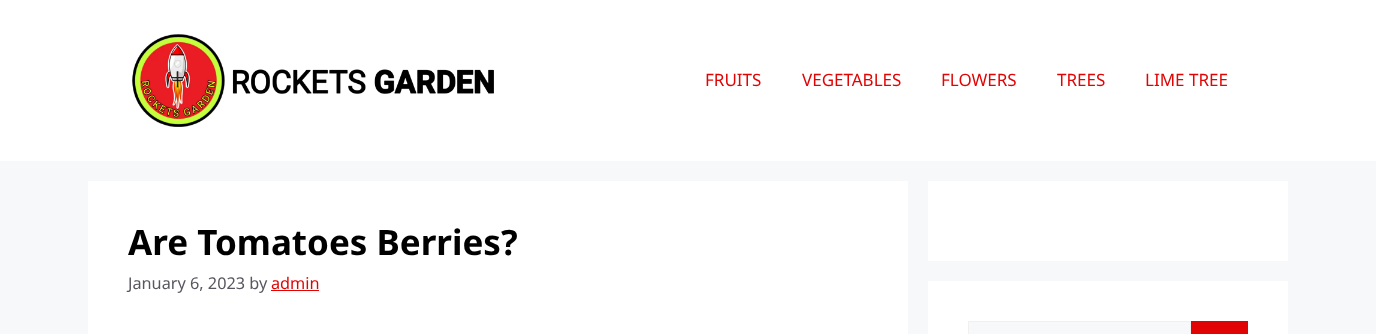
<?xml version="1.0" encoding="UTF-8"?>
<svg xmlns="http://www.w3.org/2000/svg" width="1376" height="334">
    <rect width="100%" height="100%" fill="#F7F8F9"/>
    <rect x="0" y="0" width="1376" height="161" fill="#FFFFFF"/>
    <image x="132" y="34" width="362" height="93" href="img_01.png"/>
    <text x="705" y="86" font-family="Noto Sans" font-size="17" fill="#E10404">FRUITS</text>
    <text x="802" y="86" font-family="Noto Sans" font-size="17" fill="#E10404">VEGETABLES</text>
    <text x="941" y="86" font-family="Noto Sans" font-size="17" fill="#E10404">FLOWERS</text>
    <text x="1057" y="86" font-family="Noto Sans" font-size="17" fill="#E10404">TREES</text>
    <text x="1145" y="86" font-family="Noto Sans" font-size="17" fill="#E10404">LIME TREE</text>
    <rect x="88" y="181" width="820" height="153" fill="#FFFFFF"/>
    <text x="128" y="255" font-family="Noto Sans" font-size="35" font-weight="700" fill="#000000">Are Tomatoes Berries?</text>
    <text x="128" y="289" font-family="Noto Sans" font-size="16.25" fill="#575760">January 6, 2023 by</text>
    <text x="271" y="289" font-family="Noto Sans" font-size="16.25" fill="#E10404">admin</text>
    <rect x="271" y="290" width="48" height="1" fill="#E10404"/>
    <rect x="928" y="181" width="360" height="80" fill="#FFFFFF"/>
    <rect x="928" y="281" width="360" height="53" fill="#FFFFFF"/>
    <rect x="968.5" y="321.5" width="222" height="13" fill="#F7F8F9" stroke="#F0F0F0"/>
    <rect x="1191" y="321" width="57" height="13" fill="#E10404"/>
</svg>
